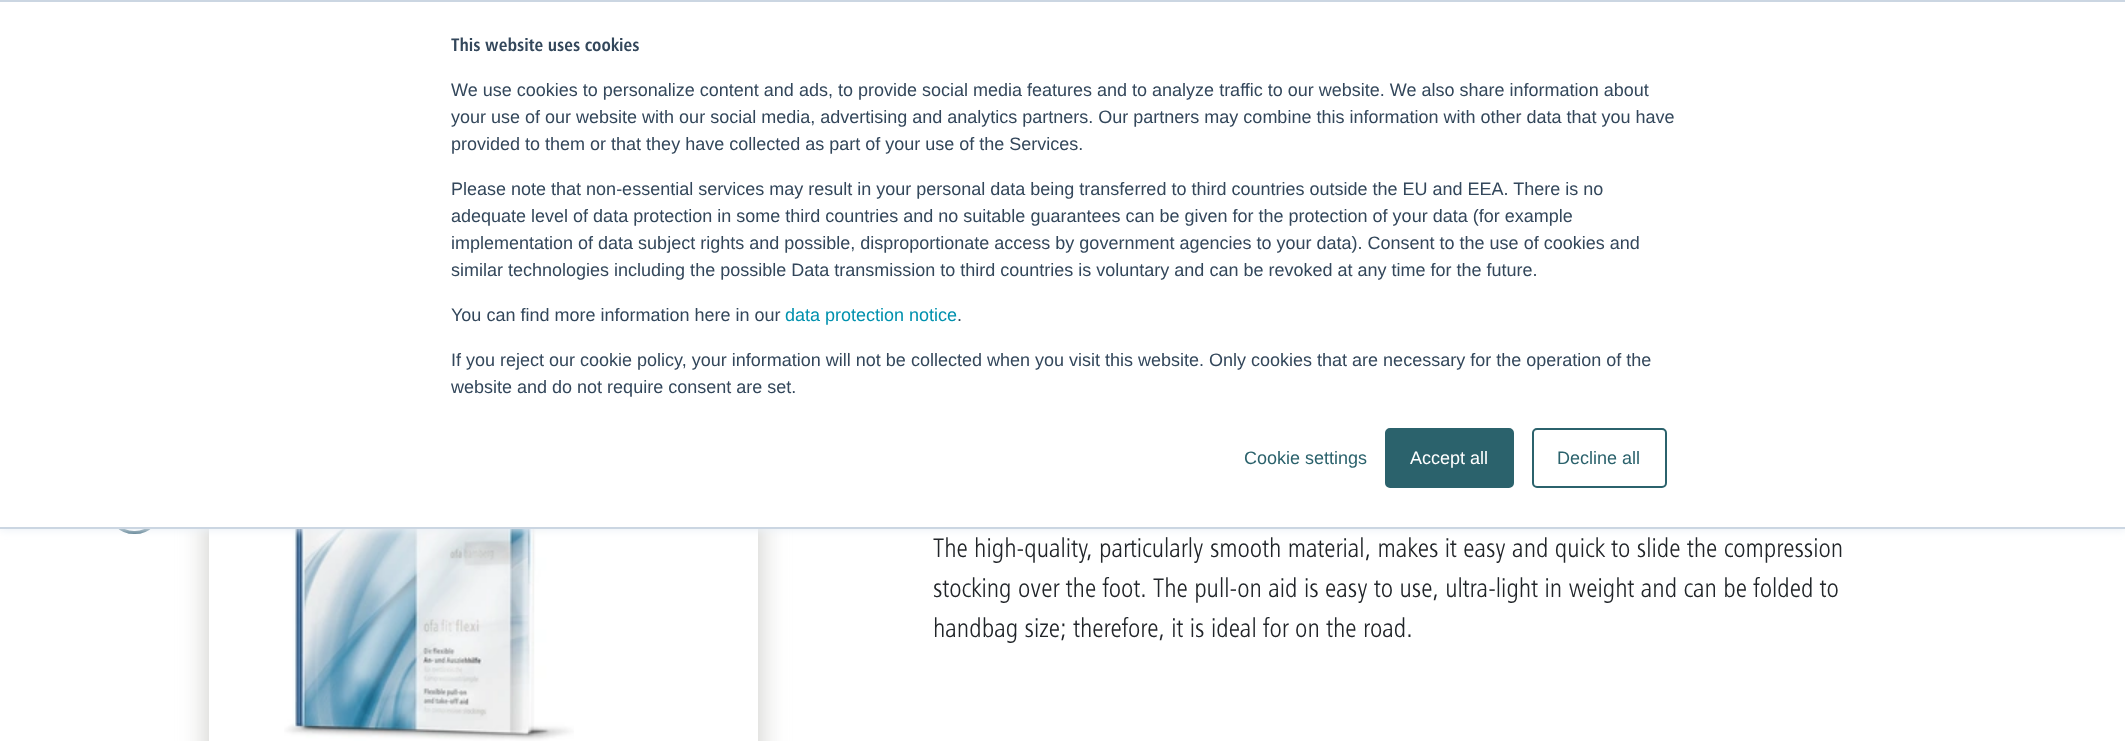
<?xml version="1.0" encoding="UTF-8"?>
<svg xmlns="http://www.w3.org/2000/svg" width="2125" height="741">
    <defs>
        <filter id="blur1" x="-50%" y="-200%" width="200%" height="500%"><feGaussianBlur stdDeviation="13.5"/></filter>
        <filter id="blur2" x="-50%" y="-200%" width="200%" height="500%"><feGaussianBlur stdDeviation="4"/></filter>
    </defs>
    <rect width="100%" height="100%" fill="#FFFFFF"/>
    <rect x="109.5" y="483.5" width="50" height="49" rx="24.5" fill="none" stroke="#547A8B" stroke-width="3"/>
    <rect x="206" y="302" width="555" height="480" fill="#D1D1CF" filter="url(#blur1)"/>
    <rect x="209" y="529" width="549" height="212" fill="#FFFFFF"/>
    <image x="284" y="529" width="290" height="212" href="img_01.png"/>
    <rect x="0" y="2" width="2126" height="528" fill="#EAF0F6" filter="url(#blur2)"/>
    <rect x="0" y="2" width="2125" height="525" fill="#FFFFFF"/>
    <rect x="0" y="0" width="2125" height="2" fill="#CBD6E2"/>
    <rect x="0" y="527" width="2125" height="2" fill="#CBD6E2"/>
    <text x="451" y="51" font-family="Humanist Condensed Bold" font-size="18" font-weight="700" fill="#33475B">This website uses cookies</text>
    <text font-family="Liberation Sans" font-size="18" fill="#33475B">
        <tspan x="451" y="96">We use cookies to personalize content and ads, to provide social media features and to analyze traffic to our website. We also share information about</tspan>
        <tspan x="451" y="123">your use of our website with our social media, advertising and analytics partners. Our partners may combine this information with other data that you have</tspan>
        <tspan x="451" y="150">provided to them or that they have collected as part of your use of the Services.</tspan>
    </text>
    <text font-family="Liberation Sans" font-size="18" fill="#33475B">
        <tspan x="451" y="195">Please note that non-essential services may result in your personal data being transferred to third countries outside the EU and EEA. There is no</tspan>
        <tspan x="451" y="222">adequate level of data protection in some third countries and no suitable guarantees can be given for the protection of your data (for example</tspan>
        <tspan x="451" y="249">implementation of data subject rights and possible, disproportionate access by government agencies to your data). Consent to the use of cookies and</tspan>
        <tspan x="451" y="276">similar technologies including the possible Data transmission to third countries is voluntary and can be revoked at any time for the future.</tspan>
    </text>
    <text x="451" y="321" font-family="Liberation Sans" font-size="18" fill="#33475B">You can find more information here in our</text>
    <text x="785" y="321" font-family="Liberation Sans" font-size="18" fill="#0091AE">data protection notice</text>
    <text x="957" y="321" font-family="Liberation Sans" font-size="18" fill="#33475B">.</text>
    <text font-family="Liberation Sans" font-size="18" fill="#33475B">
        <tspan x="451" y="366">If you reject our cookie policy, your information will not be collected when you visit this website. Only cookies that are necessary for the operation of the</tspan>
        <tspan x="451" y="393">website and do not require consent are set.</tspan>
    </text>
    <text x="1244" y="464" font-family="Liberation Sans" font-size="18" fill="#2B626C">Cookie settings</text>
    <rect x="1386" y="429" width="127" height="58" rx="4" fill="#2B626C" stroke="#2B626C" stroke-width="2"/>
    <text x="1410" y="464" font-family="Liberation Sans" font-size="18" fill="#FFFFFF">Accept all</text>
    <rect x="1533" y="429" width="133" height="58" rx="4" fill="none" stroke="#2B626C" stroke-width="2"/>
    <text x="1557" y="464" font-family="Liberation Sans" font-size="18" fill="#2B626C">Decline all</text>
    <text font-family="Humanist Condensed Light" font-size="26.65" font-weight="300" fill="#212529">
        <tspan x="933" y="557">The high-quality, particularly smooth material, makes it easy and quick to slide the compression</tspan>
        <tspan x="933" y="597">stocking over the foot. The pull-on aid is easy to use, ultra-light in weight and can be folded to</tspan>
        <tspan x="933" y="637">handbag size; therefore, it is ideal for on the road.</tspan>
    </text>
</svg>
